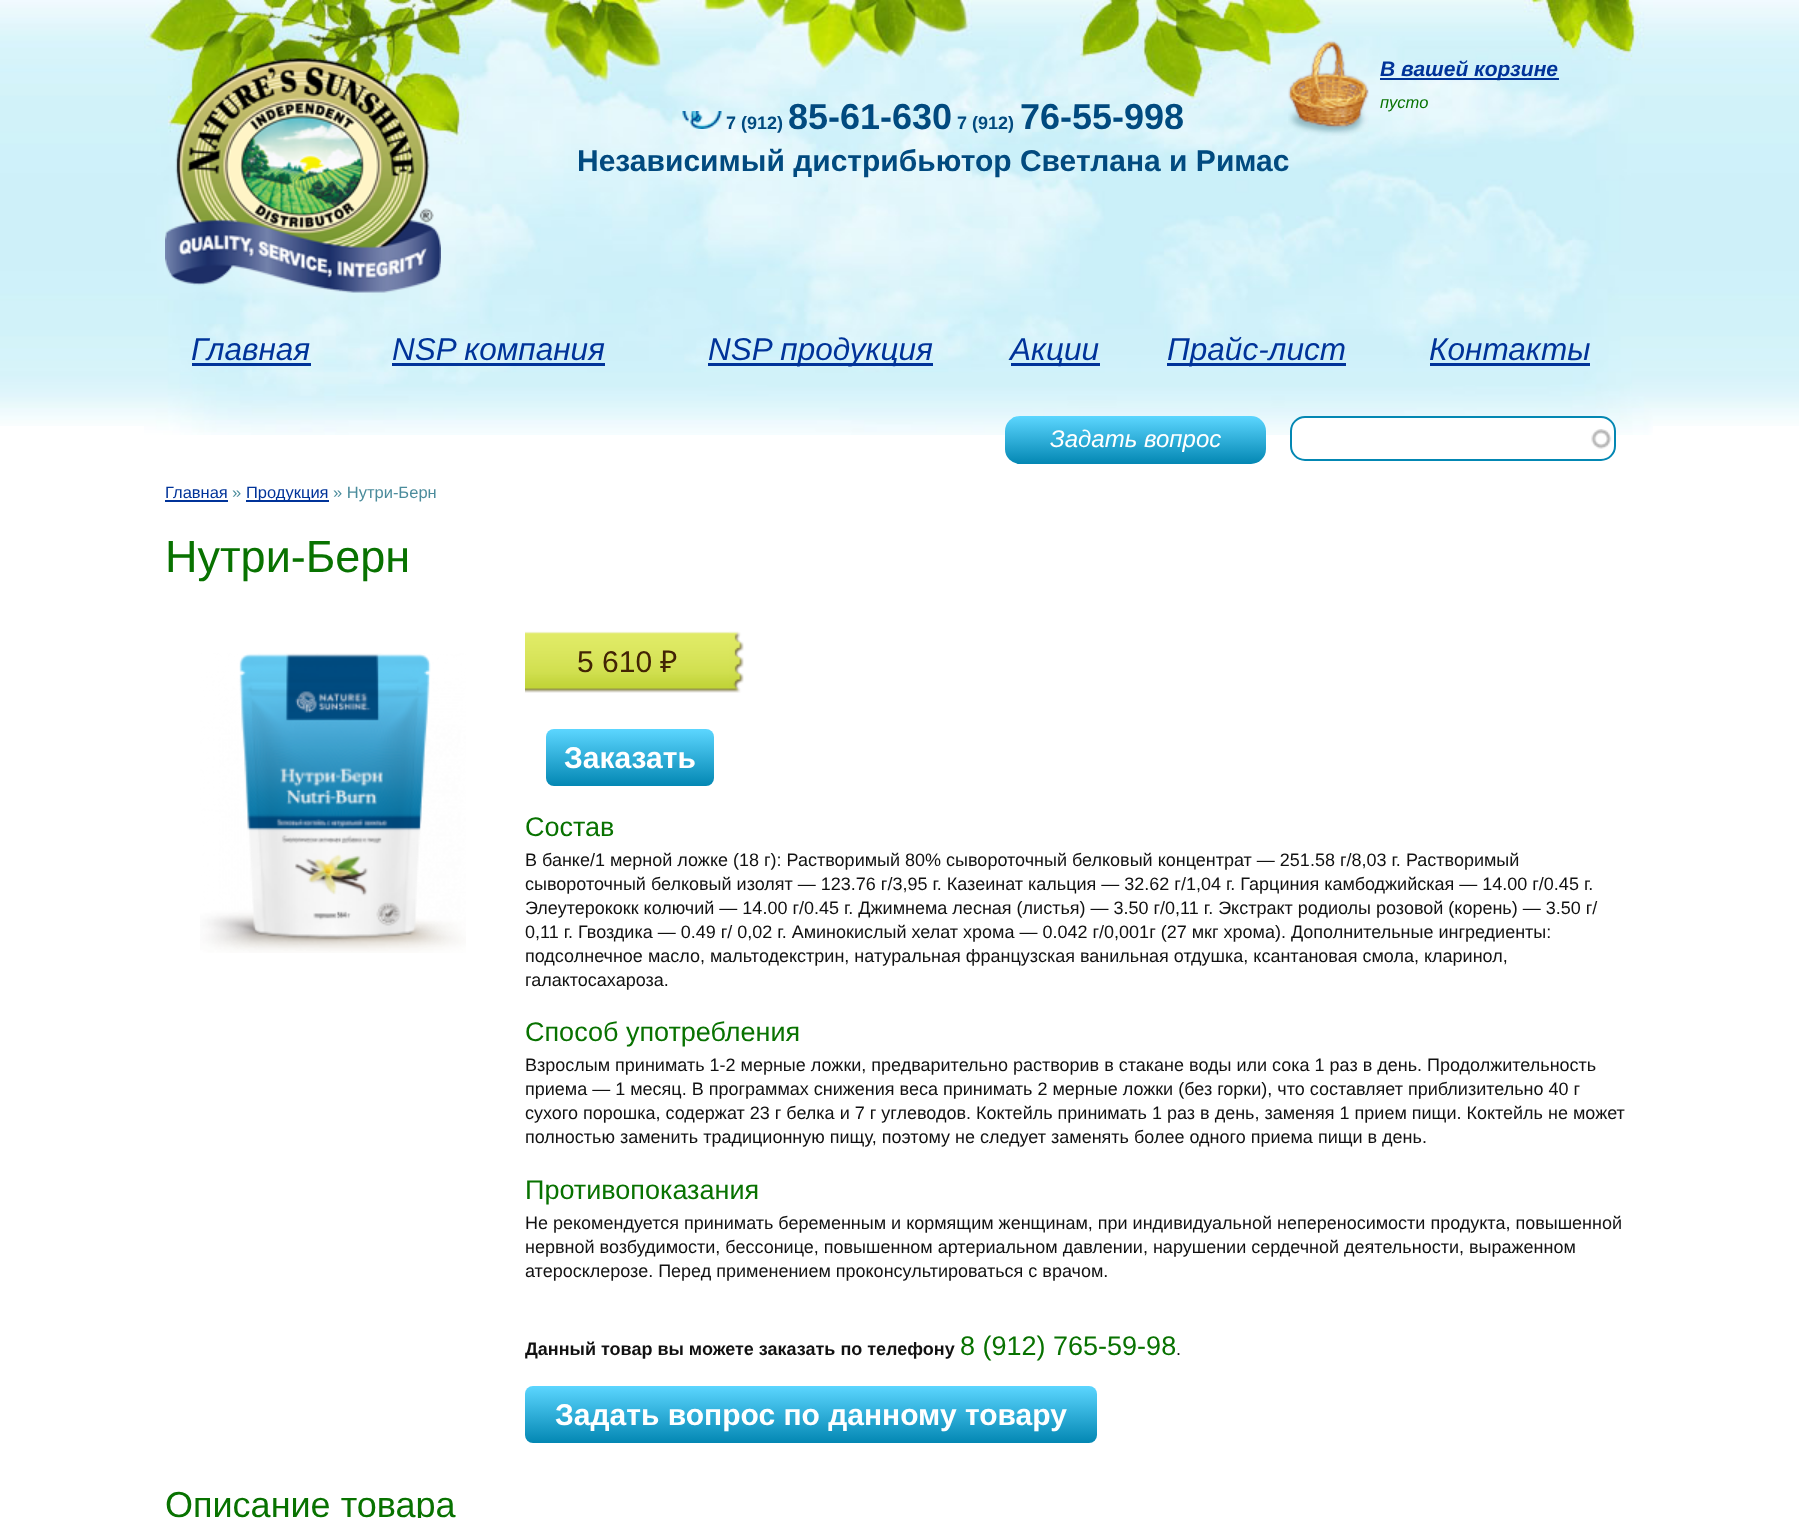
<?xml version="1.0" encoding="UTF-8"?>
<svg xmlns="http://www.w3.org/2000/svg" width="1799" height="1518">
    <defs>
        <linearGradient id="g1" gradientUnits="userSpaceOnUse" x1="1136" y1="416" x2="1136" y2="464"><stop offset="0" stop-color="#5CD6FF"/><stop offset="1" stop-color="#0387B3"/></linearGradient>
        <linearGradient id="g2" gradientUnits="userSpaceOnUse" x1="630" y1="729" x2="630" y2="786"><stop offset="0" stop-color="#5CD6FF"/><stop offset="1" stop-color="#0387B3"/></linearGradient>
        <linearGradient id="g3" gradientUnits="userSpaceOnUse" x1="811" y1="1386" x2="811" y2="1443"><stop offset="0" stop-color="#5CD6FF"/><stop offset="1" stop-color="#0387B3"/></linearGradient>
    </defs>
    <rect width="100%" height="100%" fill="#FFFFFF"/>
    <image x="0" y="0" width="1799" height="426" href="img_01.png"/>
    <image x="144" y="0" width="1509" height="435" href="img_02.png"/>
    <image x="165" y="58" width="276" height="235" href="img_03.png"/>
    <image x="1288" y="40" width="81" height="96" href="img_04.png"/>
    <rect x="1380" y="78" width="179" height="2" fill="#003399"/>
    <text x="1380" y="76" font-family="Liberation Sans" font-size="21" font-weight="700" font-style="italic" fill="#003399">В вашей корзине</text>
    <text x="1380" y="108" font-family="Liberation Sans" font-size="16.5" font-style="italic" fill="#087200">пусто</text>
    <text x="191" y="360" font-family="Liberation Sans" font-size="31.5" font-style="italic" fill="#003399">Главная</text>
    <rect x="192" y="363" width="119" height="3" fill="#003399"/>
    <text x="392" y="360" font-family="Liberation Sans" font-size="31.5" font-style="italic" fill="#003399">NSP компания</text>
    <rect x="392" y="363" width="213" height="3" fill="#003399"/>
    <rect x="708" y="363" width="225" height="3" fill="#003399"/>
    <text x="708" y="360" font-family="Liberation Sans" font-size="31.5" font-style="italic" fill="#003399">NSP продукция</text>
    <rect x="1011" y="363" width="89" height="3" fill="#003399"/>
    <text x="1010" y="360" font-family="Liberation Sans" font-size="31.5" font-style="italic" fill="#003399">Акции</text>
    <rect x="1167" y="363" width="179" height="3" fill="#003399"/>
    <text x="1167" y="360" font-family="Liberation Sans" font-size="31.5" font-style="italic" fill="#003399">Прайс-лист</text>
    <text x="1429" y="360" font-family="Liberation Sans" font-size="31.5" font-style="italic" fill="#003399">Контакты</text>
    <rect x="1430" y="363" width="160" height="3" fill="#003399"/>
    <rect x="1005" y="416" width="261" height="48" rx="15" fill="url(#g1)"/>
    <text x="1050" y="447" font-family="Liberation Sans" font-size="24" font-style="italic" fill="#FFFFFF">Задать вопрос</text>
    <rect x="1290" y="416" width="326" height="45" rx="15" fill="#FFFFFF"/>
    <image x="1591" y="429" width="21" height="20" href="img_05.png"/>
    <rect x="1291" y="417" width="324" height="43" rx="14" fill="none" stroke="#0387B3" stroke-width="2"/>
    <image x="682" y="111" width="40" height="18" href="img_06.png"/>
    <text x="726" y="129" font-family="Liberation Sans" font-size="18" font-weight="700" fill="#014A7F">7 (912)</text>
    <text x="788" y="129" font-family="Liberation Sans" font-size="36" font-weight="700" fill="#014A7F">85-61-630</text>
    <text x="957" y="129" font-family="Liberation Sans" font-size="18" font-weight="700" fill="#014A7F">7 (912)</text>
    <text x="1020" y="129" font-family="Liberation Sans" font-size="36" font-weight="700" fill="#014A7F">76-55-998</text>
    <text x="577" y="171" font-family="Liberation Sans" font-size="30" font-weight="700" fill="#014A7F">Независимый дистрибьютор Светлана и Римас</text>
    <text x="165" y="498" font-family="Liberation Sans" font-size="16.5" fill="#003399">Главная</text>
    <rect x="165" y="500" width="63" height="2" fill="#003399"/>
    <text x="232" y="498" font-family="Liberation Sans" font-size="16.5" fill="#4B8C9C">»</text>
    <rect x="246" y="500" width="83" height="2" fill="#003399"/>
    <text x="246" y="498" font-family="Liberation Sans" font-size="16.5" fill="#003399">Продукция</text>
    <text x="333" y="498" font-family="Liberation Sans" font-size="16.5" fill="#4B8C9C">» Нутри-Берн</text>
    <text x="165" y="572" font-family="Liberation Sans" font-size="45" fill="#087200">Нутри-Берн</text>
    <image x="200" y="653" width="266" height="300" href="img_07.png"/>
    <image x="525" y="631" width="204" height="62" href="img_08.png"/>
    <text x="577" y="672" font-family="Liberation Sans" font-size="30" fill="#422404">5 610</text>
    <text x="660" y="672" font-family="Noto Sans" font-size="30" fill="#422404">₽</text>
    <image x="729" y="631" width="15" height="62" href="img_09.png"/>
    <rect x="546" y="729" width="168" height="57" rx="8" fill="url(#g2)"/>
    <text x="564" y="768" font-family="Liberation Sans" font-size="30" font-weight="700" fill="#FFFFFF">Заказать</text>
    <text x="525" y="836" font-family="Liberation Sans" font-size="27" fill="#087200">Состав</text>
    <text font-family="Liberation Sans" font-size="18" fill="#111111">
        <tspan x="525" y="866">В банке/1 мерной ложке (18 г): Растворимый 80% сывороточный белковый концентрат — 251.58 г/8,03 г. Растворимый</tspan>
        <tspan x="525" y="890">сывороточный белковый изолят — 123.76 г/3,95 г. Казеинат кальция — 32.62 г/1,04 г. Гарциния камбоджийская — 14.00 г/0.45 г.</tspan>
        <tspan x="525" y="914">Элеутерококк колючий — 14.00 г/0.45 г. Джимнема лесная (листья) — 3.50 г/0,11 г. Экстракт родиолы розовой (корень) — 3.50 г/</tspan>
        <tspan x="525" y="938">0,11 г. Гвоздика — 0.49 г/ 0,02 г. Аминокислый хелат хрома — 0.042 г/0,001г (27 мкг хрома). Дополнительные ингредиенты:</tspan>
        <tspan x="525" y="962">подсолнечное масло, мальтодекстрин, натуральная французская ванильная отдушка, ксантановая смола, кларинол,</tspan>
        <tspan x="525" y="986">галактосахароза.</tspan>
    </text>
    <text x="525" y="1041" font-family="Liberation Sans" font-size="27" fill="#087200">Способ употребления</text>
    <text font-family="Liberation Sans" font-size="18" fill="#111111">
        <tspan x="525" y="1071">Взрослым принимать 1-2 мерные ложки, предварительно растворив в стакане воды или сока 1 раз в день. Продолжительность</tspan>
        <tspan x="525" y="1095">приема — 1 месяц. В программах снижения веса принимать 2 мерные ложки (без горки), что составляет приблизительно 40 г</tspan>
        <tspan x="525" y="1119">сухого порошка, содержат 23 г белка и 7 г углеводов. Коктейль принимать 1 раз в день, заменяя 1 прием пищи. Коктейль не может</tspan>
        <tspan x="525" y="1143">полностью заменить традиционную пищу, поэтому не следует заменять более одного приема пищи в день.</tspan>
    </text>
    <text x="525" y="1199" font-family="Liberation Sans" font-size="27" fill="#087200">Противопоказания</text>
    <text font-family="Liberation Sans" font-size="18" fill="#111111">
        <tspan x="525" y="1229">Не рекомендуется принимать беременным и кормящим женщинам, при индивидуальной непереносимости продукта, повышенной</tspan>
        <tspan x="525" y="1253">нервной возбудимости, бессонице, повышенном артериальном давлении, нарушении сердечной деятельности, выраженном</tspan>
        <tspan x="525" y="1277">атеросклерозе. Перед применением проконсультироваться с врачом.</tspan>
    </text>
    <text x="525" y="1355" font-family="Liberation Sans" font-size="18" font-weight="700" fill="#111111">Данный товар вы можете заказать по телефону</text>
    <text x="960" y="1355" font-family="Liberation Sans" font-size="27" fill="#087200">8 (912) 765-59-98</text>
    <text x="1176" y="1355" font-family="Liberation Sans" font-size="18" fill="#111111">.</text>
    <rect x="525" y="1386" width="572" height="57" rx="8" fill="url(#g3)"/>
    <text x="555" y="1425" font-family="Liberation Sans" font-size="30" font-weight="700" fill="#FFFFFF">Задать вопрос по данному товару</text>
    <text x="165" y="1517" font-family="Liberation Sans" font-size="36" fill="#087200">Описание товара</text>
</svg>
